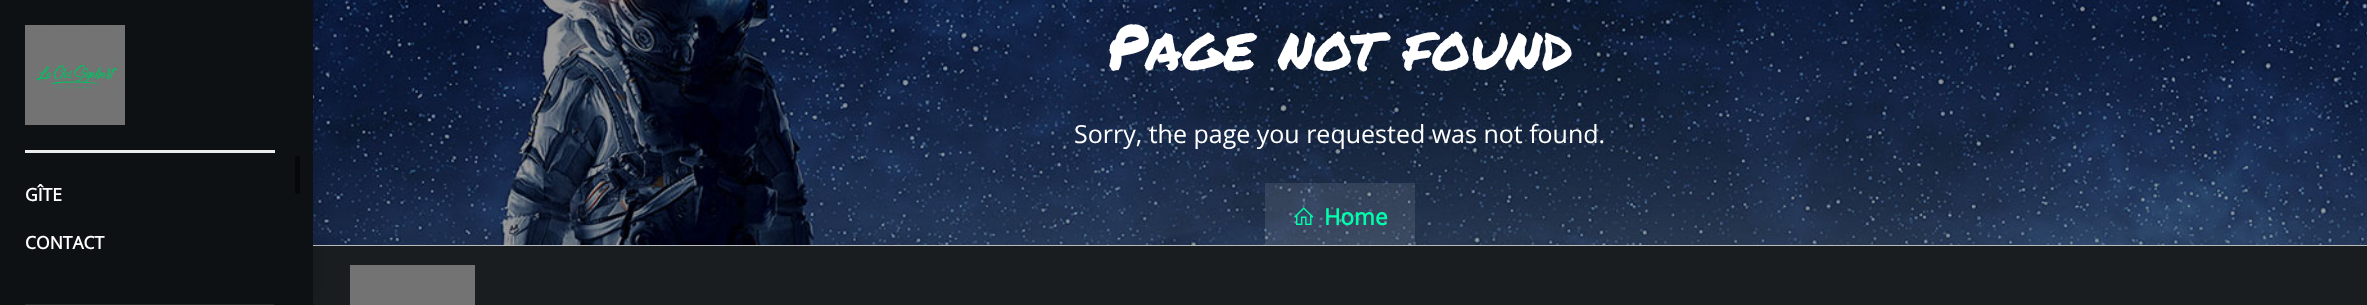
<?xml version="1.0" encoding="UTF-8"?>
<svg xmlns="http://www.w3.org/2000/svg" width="2367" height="305">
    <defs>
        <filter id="blur1" x="-50%" y="-200%" width="200%" height="500%"><feGaussianBlur stdDeviation="9.5"/></filter>
    </defs>
    <rect width="100%" height="100%" fill="#FFFFFF"/>
    <image x="313" y="0" width="2054" height="245" href="img_02.png"/>
    <rect x="313" y="246" width="2054" height="59" fill="#1A1D20"/>
    <rect x="313" y="245" width="2054" height="1" fill="#BABBBC"/>
    <rect x="5" y="0" width="313" height="305" fill="#000000" fill-opacity="0.05" filter="url(#blur1)"/>
    <rect x="0" y="0" width="313" height="305" fill="#0E1114"/>
    <rect x="295" y="156" width="5" height="38" rx="2.5" fill="#060708"/>
    <rect x="25" y="150" width="250" height="3" fill="#ECECEC"/>
    <image x="25" y="25" width="100" height="100" href="img_01.png"/>
    <text x="25" y="201" font-family="Open Sans" font-size="17.5" font-weight="700" fill="#FFFFFF">GÎTE</text>
    <text x="25" y="249" font-family="Open Sans" font-size="17.5" font-weight="700" fill="#FFFFFF">CONTACT</text>
    <rect x="25" y="304" width="249" height="1" fill="#26292C"/>
    <text x="1107" y="70" font-family="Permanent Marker" font-size="62.5" fill="#FFFFFF">Page not found</text>
    <text x="1074" y="143" font-family="Open Sans" font-size="25" fill="#FFFFFF">Sorry, the page you requested was not found.</text>
    <rect x="1265" y="183" width="150" height="62" fill="#FFFFFF" fill-opacity="0.1"/>
    <image x="1294" y="207" width="20" height="18" href="img_03.png"/>
    <text x="1324" y="225" font-family="Open Sans" font-size="22.5" font-weight="700" fill="#00FFAC">Home</text>
    <rect x="350" y="265" width="125" height="40" fill="#737373"/>
</svg>
